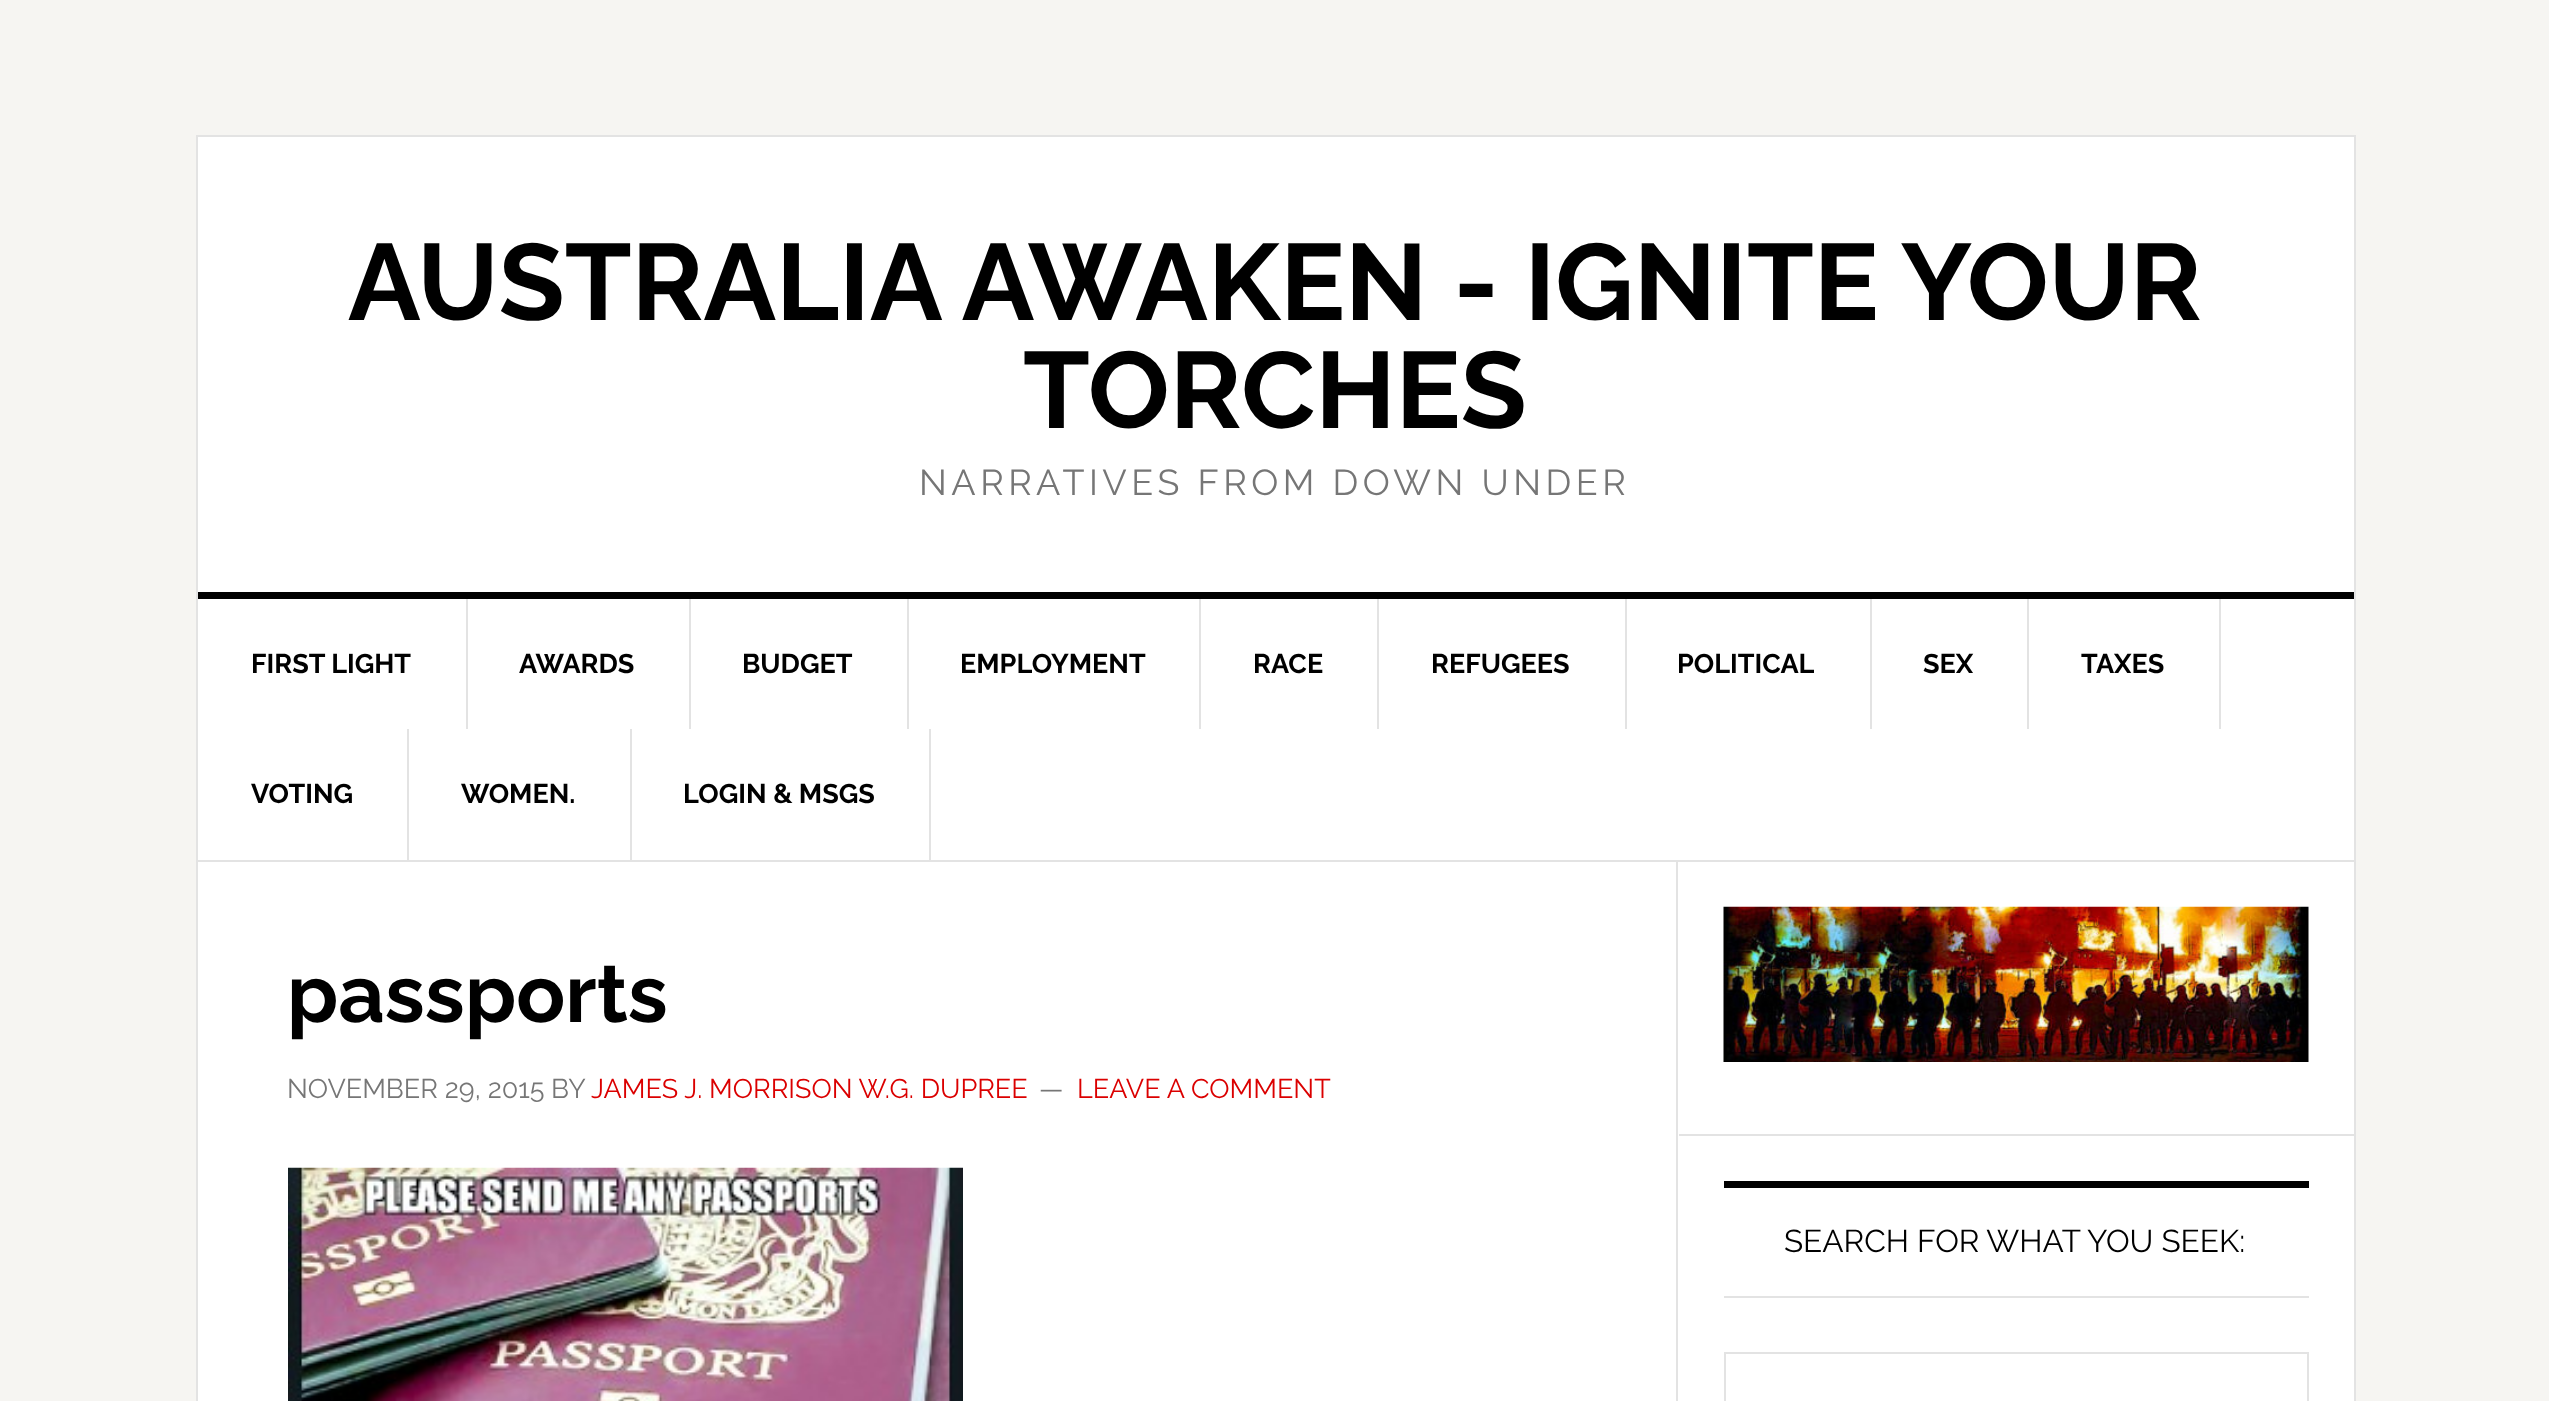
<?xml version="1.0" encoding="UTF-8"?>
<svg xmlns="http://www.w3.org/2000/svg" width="2549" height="1401">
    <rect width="100%" height="100%" fill="#F6F5F2"/>
    <rect x="197" y="136" width="2158" height="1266" fill="#FFFFFF" stroke="#E3E3E3" stroke-width="2"/>
    <rect x="198" y="592" width="2156" height="7" fill="#000000"/>
    <text x="348" y="320" font-family="Raleway" font-size="108" font-weight="700" fill="#000000">AUSTRALIA AWAKEN - IGNITE YOUR</text>
    <text x="1023" y="428" font-family="Raleway" font-size="108" font-weight="700" fill="#000000">TORCHES</text>
    <text x="919" y="495" font-family="Raleway" font-size="36" letter-spacing="4.5" fill="#767676">NARRATIVES FROM DOWN UNDER</text>
    <rect x="198" y="860" width="2156" height="2" fill="#E3E3E3"/>
    <rect x="466" y="599" width="2" height="130" fill="#E3E3E3"/>
    <text x="251" y="673" font-family="Raleway" font-size="27" font-weight="700" fill="#000000">FIRST LIGHT</text>
    <rect x="689" y="599" width="2" height="130" fill="#E3E3E3"/>
    <text x="519" y="673" font-family="Raleway" font-size="27" font-weight="700" fill="#000000">AWARDS</text>
    <rect x="907" y="599" width="2" height="130" fill="#E3E3E3"/>
    <text x="742" y="673" font-family="Raleway" font-size="27" font-weight="700" fill="#000000">BUDGET</text>
    <rect x="1199" y="599" width="2" height="130" fill="#E3E3E3"/>
    <text x="960" y="673" font-family="Raleway" font-size="27" font-weight="700" fill="#000000">EMPLOYMENT</text>
    <rect x="1377" y="599" width="2" height="130" fill="#E3E3E3"/>
    <text x="1253" y="673" font-family="Raleway" font-size="27" font-weight="700" fill="#000000">RACE</text>
    <rect x="1625" y="599" width="2" height="130" fill="#E3E3E3"/>
    <text x="1431" y="673" font-family="Raleway" font-size="27" font-weight="700" fill="#000000">REFUGEES</text>
    <rect x="1870" y="599" width="2" height="130" fill="#E3E3E3"/>
    <text x="1677" y="673" font-family="Raleway" font-size="27" font-weight="700" fill="#000000">POLITICAL</text>
    <rect x="2027" y="599" width="2" height="130" fill="#E3E3E3"/>
    <text x="1923" y="673" font-family="Raleway" font-size="27" font-weight="700" fill="#000000">SEX</text>
    <rect x="2219" y="599" width="2" height="130" fill="#E3E3E3"/>
    <text x="2081" y="673" font-family="Raleway" font-size="27" font-weight="700" fill="#000000">TAXES</text>
    <rect x="407" y="729" width="2" height="131" fill="#E3E3E3"/>
    <text x="251" y="803" font-family="Raleway" font-size="27" font-weight="700" fill="#000000">VOTING</text>
    <rect x="630" y="729" width="2" height="131" fill="#E3E3E3"/>
    <text x="461" y="803" font-family="Raleway" font-size="27" font-weight="700" fill="#000000">WOMEN.</text>
    <rect x="929" y="729" width="2" height="131" fill="#E3E3E3"/>
    <text x="683" y="803" font-family="Raleway" font-size="27" font-weight="700" fill="#000000">LOGIN &amp; MSGS</text>
    <rect x="1676" y="862" width="2" height="539" fill="#E3E3E3"/>
    <text x="287" y="1022" font-family="Raleway" font-size="81" font-weight="700" fill="#000000">passports</text>
    <text x="287" y="1098" font-family="Raleway" font-size="27" fill="#767676">NOVEMBER 29, 2015</text>
    <text x="551" y="1098" font-family="Raleway" font-size="27" fill="#767676">BY</text>
    <text x="591" y="1098" font-family="Raleway" font-size="27" fill="#DB0000">JAMES J. MORRISON W.G. DUPREE</text>
    <text x="1039" y="1098" font-family="Raleway" font-size="27" fill="#767676">—</text>
    <text x="1077" y="1098" font-family="Raleway" font-size="27" fill="#DB0000">LEAVE A COMMENT</text>
    <image x="288" y="1167" width="675" height="234" href="img_01.png"/>
    <rect x="1679" y="1134" width="675" height="2" fill="#E3E3E3"/>
    <image x="1723" y="906" width="586" height="156" href="img_02.png"/>
    <rect x="1724" y="1181" width="585" height="7" fill="#000000"/>
    <rect x="1724" y="1296" width="585" height="2" fill="#E3E3E3"/>
    <text x="1784" y="1252" font-family="Raleway" font-size="31.5" fill="#000000">SEARCH FOR WHAT YOU SEEK:</text>
    <rect x="1725" y="1353" width="583" height="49" fill="none" stroke="#E3E3E3" stroke-width="2"/>
</svg>
